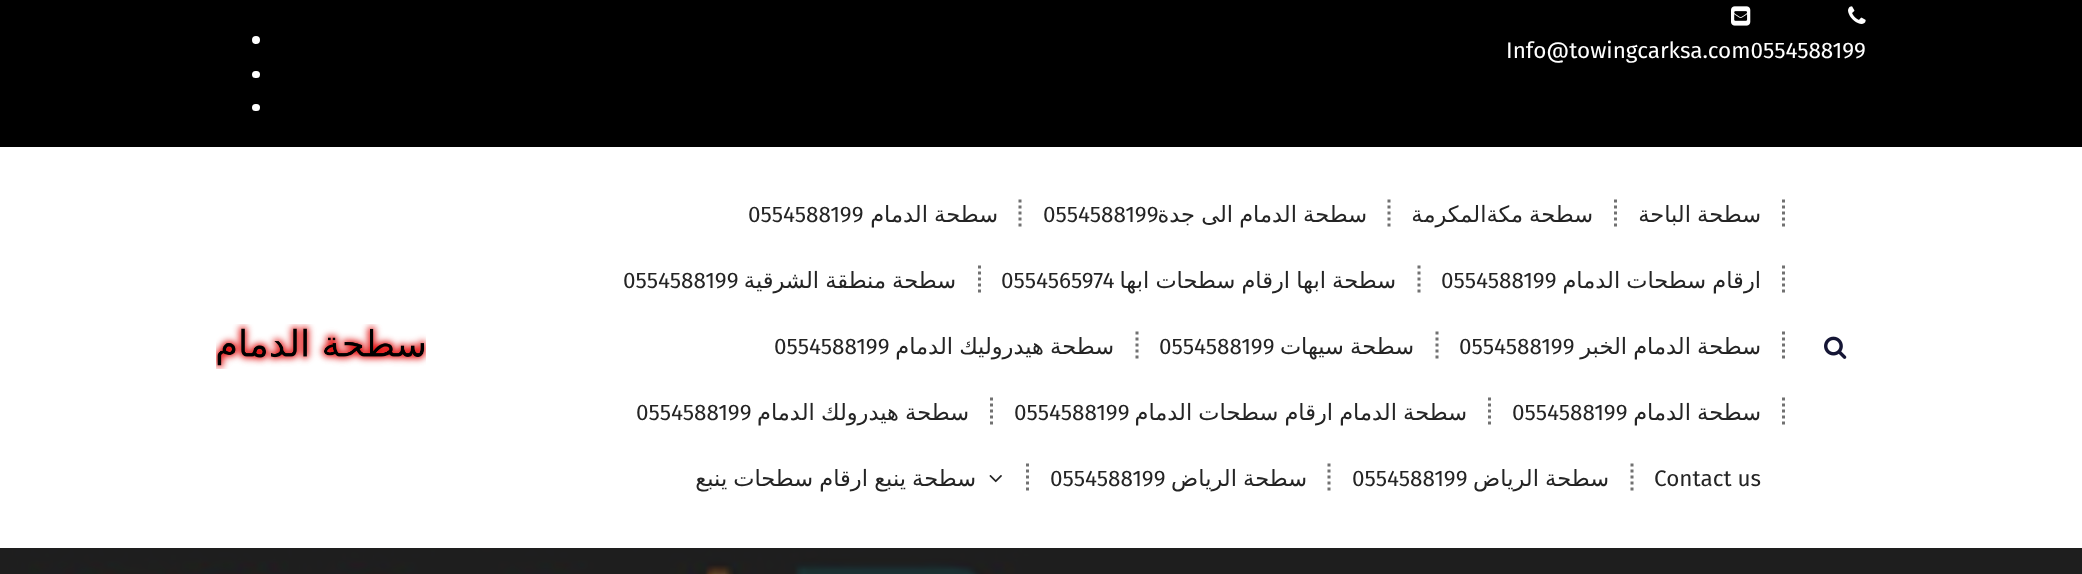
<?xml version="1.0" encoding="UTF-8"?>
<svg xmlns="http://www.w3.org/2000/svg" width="2082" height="574">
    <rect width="100%" height="100%" fill="#FFFFFF"/>
    <rect x="0" y="0" width="2082" height="147" fill="#000000"/>
    <image x="1848" y="6" width="18" height="18" href="img_01.png"/>
    <image x="1731" y="6" width="20" height="20" href="img_02.png"/>
    <text x="1506" y="58" font-family="Fira Sans" font-size="22.5" fill="#FFFFFF">Info@towingcarksa.com0554588199</text>
    <circle cx="256" cy="40" r="4" fill="#FFFFFF"/>
    <rect x="252" y="71" width="8" height="7" rx="3.5" fill="#FFFFFF"/>
    <rect x="252" y="104" width="8" height="7" rx="3.5" fill="#FFFFFF"/>
    <image x="1824" y="336" width="23" height="23" href="img_03.png"/>
    <path d="M 1783.5 199.5 V 229.5" fill="none" stroke="#717171" stroke-width="3" stroke-dasharray="3 3"/>
    <text x="1761" y="222" word-spacing="-1" font-family="DejaVu Sans" font-size="22.5" direction="rtl" fill="#242424">سطحة الباحة</text>
    <path d="M 1615.5 199.5 V 229.5" fill="none" stroke="#717171" stroke-width="3" stroke-dasharray="3 3"/>
    <text x="1593" y="222" word-spacing="-1" font-family="DejaVu Sans" font-size="22.5" direction="rtl" fill="#242424">سطحة مكةالمكرمة</text>
    <path d="M 1389 199.5 V 229.5" fill="none" stroke="#717171" stroke-width="3" stroke-dasharray="3 3"/>
    <text x="1367" y="222" word-spacing="-1" font-family="DejaVu Sans" font-size="22.5" direction="rtl" fill="#242424">سطحة الدمام الى جدة</text>
    <text x="1043" y="222" font-family="Fira Sans" font-size="22.5" fill="#242424">0554588199</text>
    <path d="M 1020 199.5 V 229.5" fill="none" stroke="#717171" stroke-width="3" stroke-dasharray="3 3"/>
    <text x="998" y="222" word-spacing="-1" font-family="DejaVu Sans" font-size="22.5" direction="rtl" fill="#242424">سطحة الدمام</text>
    <text x="748" y="222" font-family="Fira Sans" font-size="22.5" fill="#242424">0554588199</text>
    <path d="M 1783.5 265.5 V 295.5" fill="none" stroke="#717171" stroke-width="3" stroke-dasharray="3 3"/>
    <text x="1761" y="288" word-spacing="-1" font-family="DejaVu Sans" font-size="22.5" direction="rtl" fill="#242424">ارقام سطحات الدمام</text>
    <text x="1441" y="288" font-family="Fira Sans" font-size="22.5" fill="#242424">0554588199</text>
    <path d="M 1419 265.5 V 295.5" fill="none" stroke="#717171" stroke-width="3" stroke-dasharray="3 3"/>
    <text x="1396" y="288" word-spacing="-1" font-family="DejaVu Sans" font-size="22.5" direction="rtl" fill="#242424">سطحة ابها ارقام سطحات ابها</text>
    <text x="1001" y="288" font-family="Fira Sans" font-size="22.5" fill="#242424">0554565974</text>
    <path d="M 979.5 265.5 V 295.5" fill="none" stroke="#717171" stroke-width="3" stroke-dasharray="3 3"/>
    <text x="956" y="288" word-spacing="-1" font-family="DejaVu Sans" font-size="22.5" direction="rtl" fill="#242424">سطحة منطقة الشرقية</text>
    <text x="623" y="288" font-family="Fira Sans" font-size="22.5" fill="#242424">0554588199</text>
    <path d="M 1783.5 331.5 V 361.5" fill="none" stroke="#717171" stroke-width="3" stroke-dasharray="3 3"/>
    <text x="1761" y="354" word-spacing="-1" font-family="DejaVu Sans" font-size="22.5" direction="rtl" fill="#242424">سطحة الدمام الخبر</text>
    <text x="1459" y="354" font-family="Fira Sans" font-size="22.5" fill="#242424">0554588199</text>
    <path d="M 1437 331.5 V 361.5" fill="none" stroke="#717171" stroke-width="3" stroke-dasharray="3 3"/>
    <text x="1414" y="354" word-spacing="-1" font-family="DejaVu Sans" font-size="22.5" direction="rtl" fill="#242424">سطحة سيهات</text>
    <text x="1159" y="354" font-family="Fira Sans" font-size="22.5" fill="#242424">0554588199</text>
    <path d="M 1137 331.5 V 361.5" fill="none" stroke="#717171" stroke-width="3" stroke-dasharray="3 3"/>
    <text x="1114" y="354" word-spacing="-1" font-family="DejaVu Sans" font-size="22.5" direction="rtl" fill="#242424">سطحة هيدروليك الدمام</text>
    <text x="774" y="354" font-family="Fira Sans" font-size="22.5" fill="#242424">0554588199</text>
    <path d="M 1783.5 397.5 V 427.5" fill="none" stroke="#717171" stroke-width="3" stroke-dasharray="3 3"/>
    <text x="1761" y="420" word-spacing="-1" font-family="DejaVu Sans" font-size="22.5" direction="rtl" fill="#242424">سطحة الدمام</text>
    <text x="1512" y="420" font-family="Fira Sans" font-size="22.5" fill="#242424">0554588199</text>
    <path d="M 1489.5 397.5 V 427.5" fill="none" stroke="#717171" stroke-width="3" stroke-dasharray="3 3"/>
    <text x="1467" y="420" word-spacing="-1" font-family="DejaVu Sans" font-size="22.5" direction="rtl" fill="#242424">سطحة الدمام ارقام سطحات الدمام</text>
    <text x="1014" y="420" font-family="Fira Sans" font-size="22.5" fill="#242424">0554588199</text>
    <path d="M 991.5 397.5 V 427.5" fill="none" stroke="#717171" stroke-width="3" stroke-dasharray="3 3"/>
    <text x="969" y="420" word-spacing="-1" font-family="DejaVu Sans" font-size="22.5" direction="rtl" fill="#242424">سطحة هيدرولك الدمام</text>
    <text x="636" y="420" font-family="Fira Sans" font-size="22.5" fill="#242424">0554588199</text>
    <text x="1654" y="486" font-family="Fira Sans" font-size="22.5" fill="#242424">Contact us</text>
    <path d="M 1632 463.5 V 493.5" fill="none" stroke="#717171" stroke-width="3" stroke-dasharray="3 3"/>
    <text x="1609" y="486" word-spacing="-1" font-family="DejaVu Sans" font-size="22.5" direction="rtl" fill="#242424">سطحة الرياض</text>
    <text x="1352" y="486" font-family="Fira Sans" font-size="22.5" fill="#242424">0554588199</text>
    <path d="M 1329 463.5 V 493.5" fill="none" stroke="#717171" stroke-width="3" stroke-dasharray="3 3"/>
    <text x="1307" y="486" word-spacing="-1" font-family="DejaVu Sans" font-size="22.5" direction="rtl" fill="#242424">سطحة الرياض</text>
    <text x="1050" y="486" font-family="Fira Sans" font-size="22.5" fill="#242424">0554588199</text>
    <path d="M 1027.5 463.5 V 493.5" fill="none" stroke="#717171" stroke-width="3" stroke-dasharray="3 3"/>
    <image x="989" y="475" width="13" height="8" href="img_04.png"/>
    <text x="976" y="486" word-spacing="-1" font-family="DejaVu Sans" font-size="22.5" direction="rtl" fill="#242424">سطحة ينبع ارقام سطحات ينبع</text>
    <image x="216" y="324" width="210" height="45" href="img_05.png"/>
    <image x="0" y="548" width="2082" height="26" href="img_06.png"/>
</svg>
